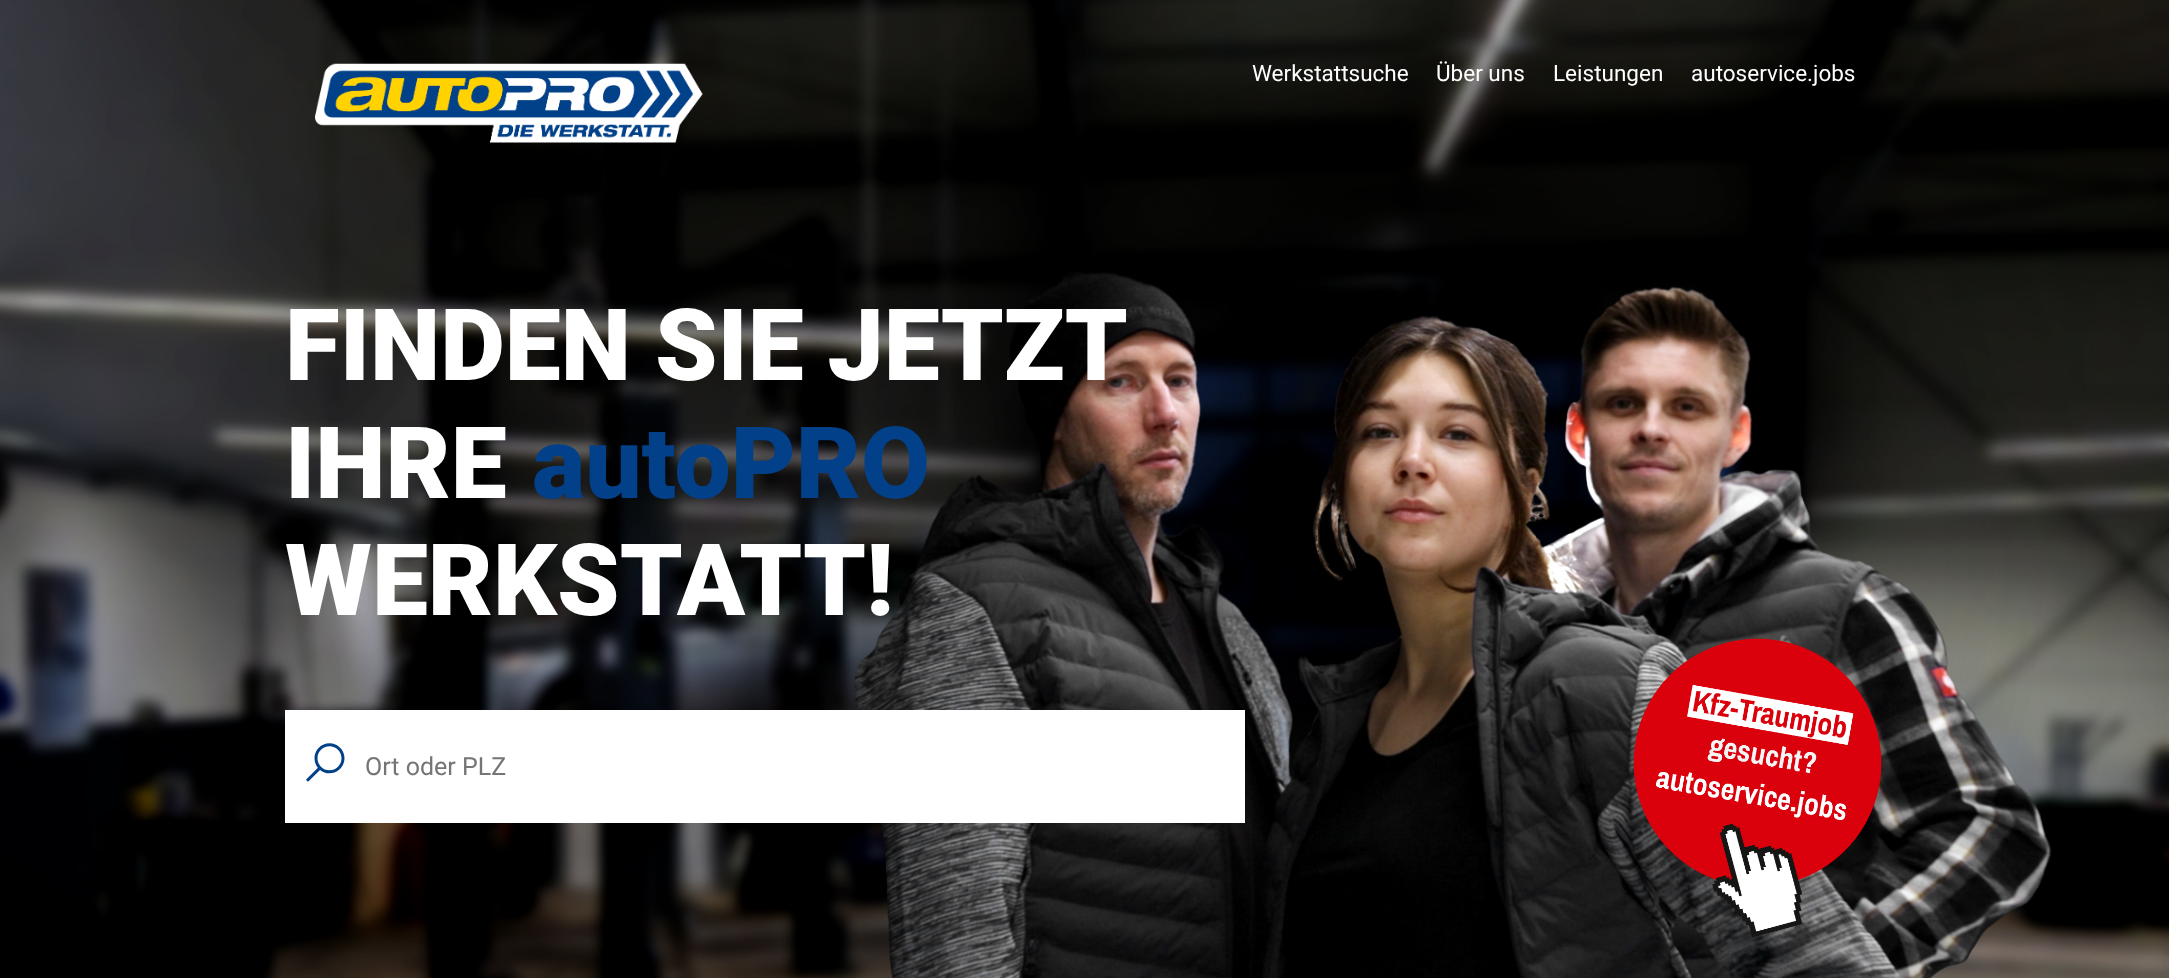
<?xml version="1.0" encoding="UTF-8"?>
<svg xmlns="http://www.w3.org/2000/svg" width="2169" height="978">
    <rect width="100%" height="100%" fill="#FFFFFF"/>
    <image x="0" y="0" width="2169" height="978" href="img_02.png"/>
    <image x="315" y="63" width="388" height="80" href="img_01.png"/>
    <text x="1252" y="81" font-family="Roboto" font-size="22.5" fill="#FFFFFF">Werkstattsuche</text>
    <text x="1436" y="81" font-family="Roboto" font-size="22.5" fill="#FFFFFF">Über uns</text>
    <text x="1553" y="81" font-family="Roboto" font-size="22.5" fill="#FFFFFF">Leistungen</text>
    <text x="1691" y="81" font-family="Roboto" font-size="22.5" fill="#FFFFFF">autoservice.jobs</text>
    <text font-family="Roboto" font-size="100" font-weight="900" fill="#FFFFFF">
        <tspan x="285" y="380" word-spacing="-1">FINDEN SIE JETZT</tspan>
        <tspan x="285" y="498">IHRE</tspan>
    </text>
    <text x="532" y="498" font-family="Roboto" font-size="100" font-weight="900" fill="#024089">autoPRO</text>
    <text x="285" y="615" font-family="Roboto" font-size="100" font-weight="900" fill="#FFFFFF">WERKSTATT!</text>
    <rect x="285" y="710" width="960" height="113" fill="#FFFFFF"/>
    <image x="306" y="743" width="39" height="39" href="img_03.png"/>
    <text x="365" y="775" font-family="Roboto" font-size="25" fill="#757575">Ort oder PLZ</text>
    <image x="1633" y="638" width="249" height="300" href="img_04.png"/>
</svg>
